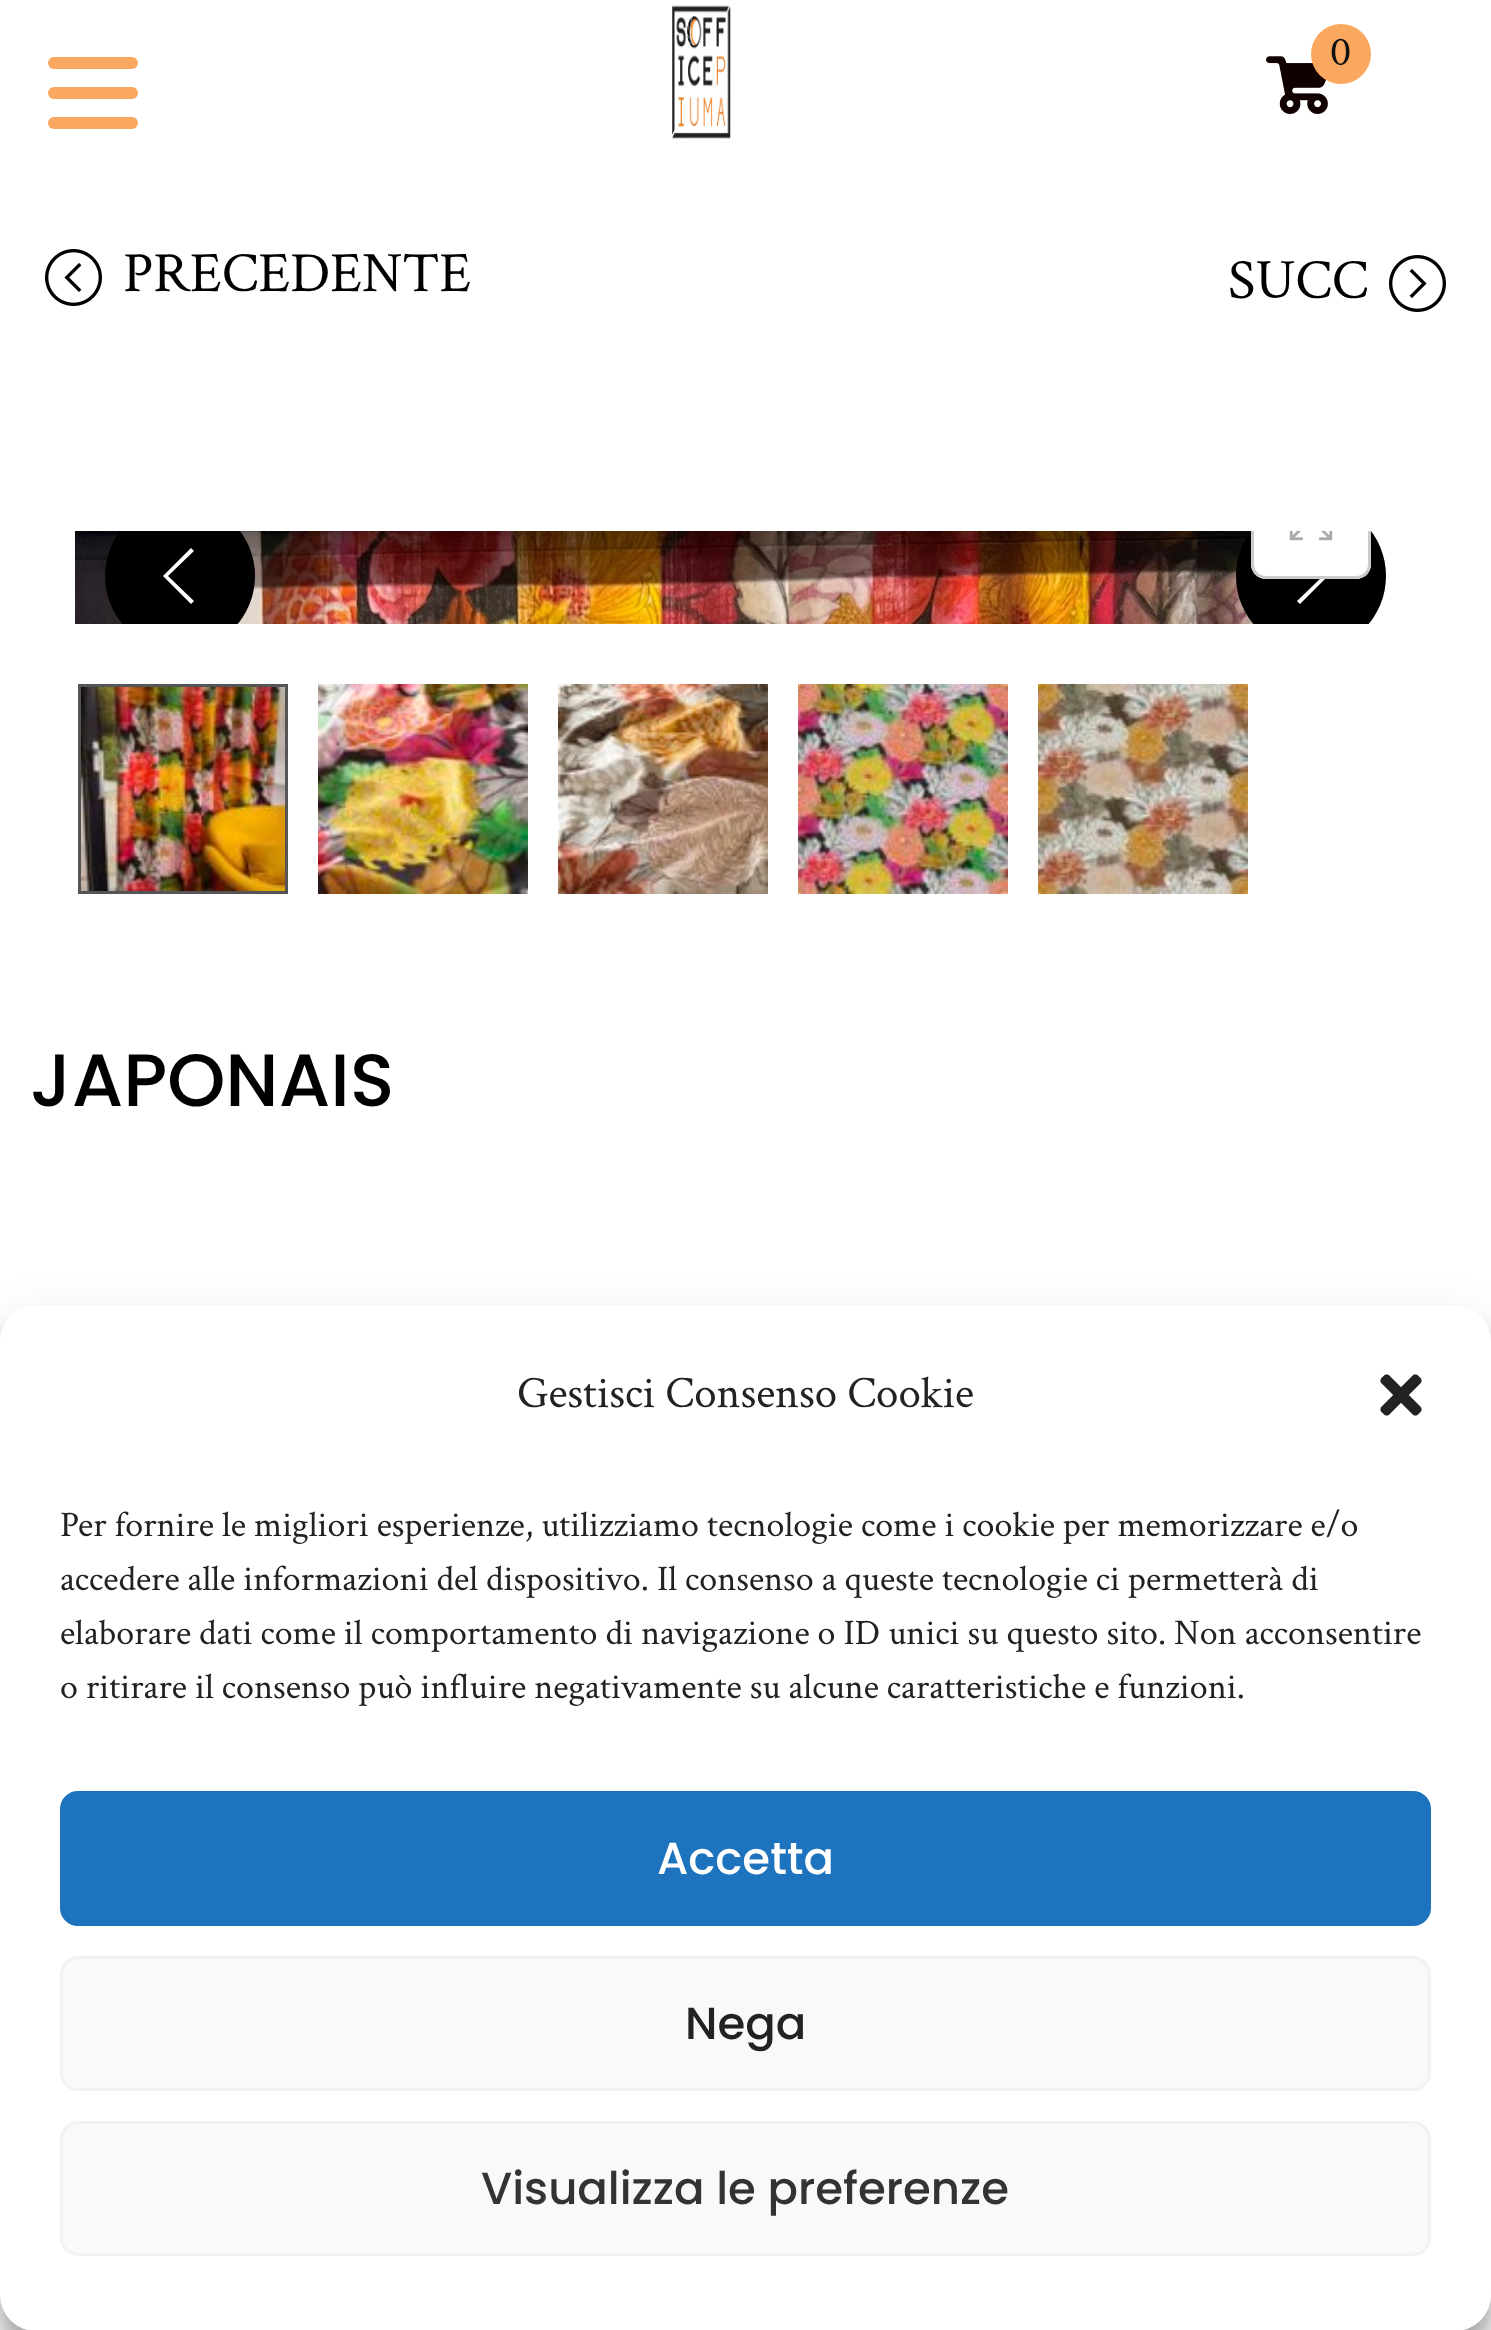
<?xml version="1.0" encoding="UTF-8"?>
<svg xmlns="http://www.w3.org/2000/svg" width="1491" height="2330">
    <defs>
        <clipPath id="clip1"><rect x="75" y="531" width="1341" height="93"/></clipPath>
        <filter id="blur1" x="-50%" y="-200%" width="200%" height="500%"><feGaussianBlur stdDeviation="9"/></filter>
        <filter id="blur2" x="-50%" y="-200%" width="200%" height="500%"><feGaussianBlur stdDeviation="30"/></filter>
    </defs>
    <rect width="100%" height="100%" fill="#FFFFFF"/>
    <image x="672" y="5" width="59" height="134" href="img_01.png"/>
    <image x="1266" y="56" width="62" height="58" href="img_02.png"/>
    <circle cx="1341" cy="54" r="30" fill="#FAA760"/>
    <text x="1330" y="65" font-family="Crimson Text" font-size="42" fill="#111111">0</text>
    <rect x="48" y="57" width="90" height="12" rx="6" fill="#FAA760"/>
    <rect x="48" y="87" width="90" height="12" rx="6" fill="#FAA760"/>
    <rect x="48" y="117" width="90" height="12" rx="6" fill="#FAA760"/>
    <image x="45" y="249" width="57" height="57" href="img_03.png"/>
    <text x="123" y="291" font-family="Crimson Text" font-size="57" fill="#000000">PRECEDENTE</text>
    <text x="1228" y="298" font-family="Crimson Text" font-size="57" fill="#000000">SUCC</text>
    <image x="1389" y="255" width="57" height="57" href="img_04.png"/>
    <image x="75" y="531" width="1179" height="93" href="img_06.png"/>
    <g clip-path="url(#clip1)">
        <circle cx="1311" cy="576" r="75" fill="#000000"/>
    </g>
    <path d="M 1328 576 L 1300 604 L 1297 601 L 1323 576 L 1297 551 L 1300 548 Z" fill="#FFFFFF"/>
    <path d="M 1251 531 H 1371 V 564 C 1371 572.5 1364.5 579 1356 579 H 1266 C 1257.5 579 1251 572.5 1251 564 Z" fill="#FFFFFF"/>
    <g clip-path="url(#clip1)">
        <rect x="1252.5" y="460.5" width="117" height="117" rx="13.5" fill="none" stroke="#CCCCCC" stroke-width="3"/>
    </g>
    <image x="1289" y="531" width="44" height="10" href="img_05.png"/>
    <g clip-path="url(#clip1)">
        <circle cx="180" cy="576" r="75" fill="#000000"/>
    </g>
    <path d="M 168 576 L 194 601 L 191 604 L 163 576 L 191 548 L 194 551 Z" fill="#FFFFFF"/>
    <rect x="79.5" y="685.5" width="207" height="207" fill="none" stroke="#555555" stroke-width="3"/>
    <image x="81" y="687" width="204" height="204" href="img_07.png"/>
    <image x="318" y="684" width="210" height="210" href="img_08.png"/>
    <image x="558" y="684" width="210" height="210" href="img_09.png"/>
    <image x="798" y="684" width="210" height="210" href="img_10.png"/>
    <image x="1038" y="684" width="210" height="210" href="img_11.png"/>
    <text x="30" y="1106" font-family="Poppins" font-size="74" font-weight="500" fill="#000000">JAPONAIS</text>
    <rect x="0" y="1323" width="1491" height="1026" rx="36" fill="#000000" fill-opacity="0.23" filter="url(#blur1)"/>
    <rect x="0" y="1335" width="1491" height="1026" rx="36" fill="#000000" fill-opacity="0.19" filter="url(#blur2)"/>
    <rect x="0" y="1305" width="1491" height="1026" rx="36" fill="#FFFFFF"/>
    <text x="517" y="1407" font-family="Crimson Text" font-size="45" fill="#222222">Gestisci Consenso Cookie</text>
    <image x="1380" y="1374" width="42" height="42" href="img_12.png"/>
    <text font-family="Crimson Text" font-size="36" fill="#222222">
        <tspan x="60" y="1536">Per fornire le migliori esperienze, utilizziamo tecnologie come i cookie per memorizzare e/o</tspan>
        <tspan x="60" y="1590">accedere alle informazioni del dispositivo. Il consenso a queste tecnologie ci permetterà di</tspan>
        <tspan x="60" y="1644">elaborare dati come il comportamento di navigazione o ID unici su questo sito. Non acconsentire</tspan>
        <tspan x="60" y="1698">o ritirare il consenso può influire negativamente su alcune caratteristiche e funzioni.</tspan>
    </text>
    <rect x="61.5" y="1792.5" width="1368" height="132" rx="16.5" fill="#1E73BE" stroke="#1E73BE" stroke-width="3"/>
    <text x="657" y="1874" font-family="Poppins" font-size="45" font-weight="500" fill="#FFFFFF">Accetta</text>
    <rect x="61.5" y="1957.5" width="1368" height="132" rx="16.5" fill="#F9F9F9" stroke="#F2F2F2" stroke-width="3"/>
    <text x="685" y="2039" font-family="Poppins" font-size="45" font-weight="500" fill="#222222">Nega</text>
    <rect x="61.5" y="2122.5" width="1368" height="132" rx="16.5" fill="#F9F9F9" stroke="#F2F2F2" stroke-width="3"/>
    <text x="481" y="2204" font-family="Poppins" font-size="45" font-weight="500" fill="#333333">Visualizza le preferenze</text>
</svg>
